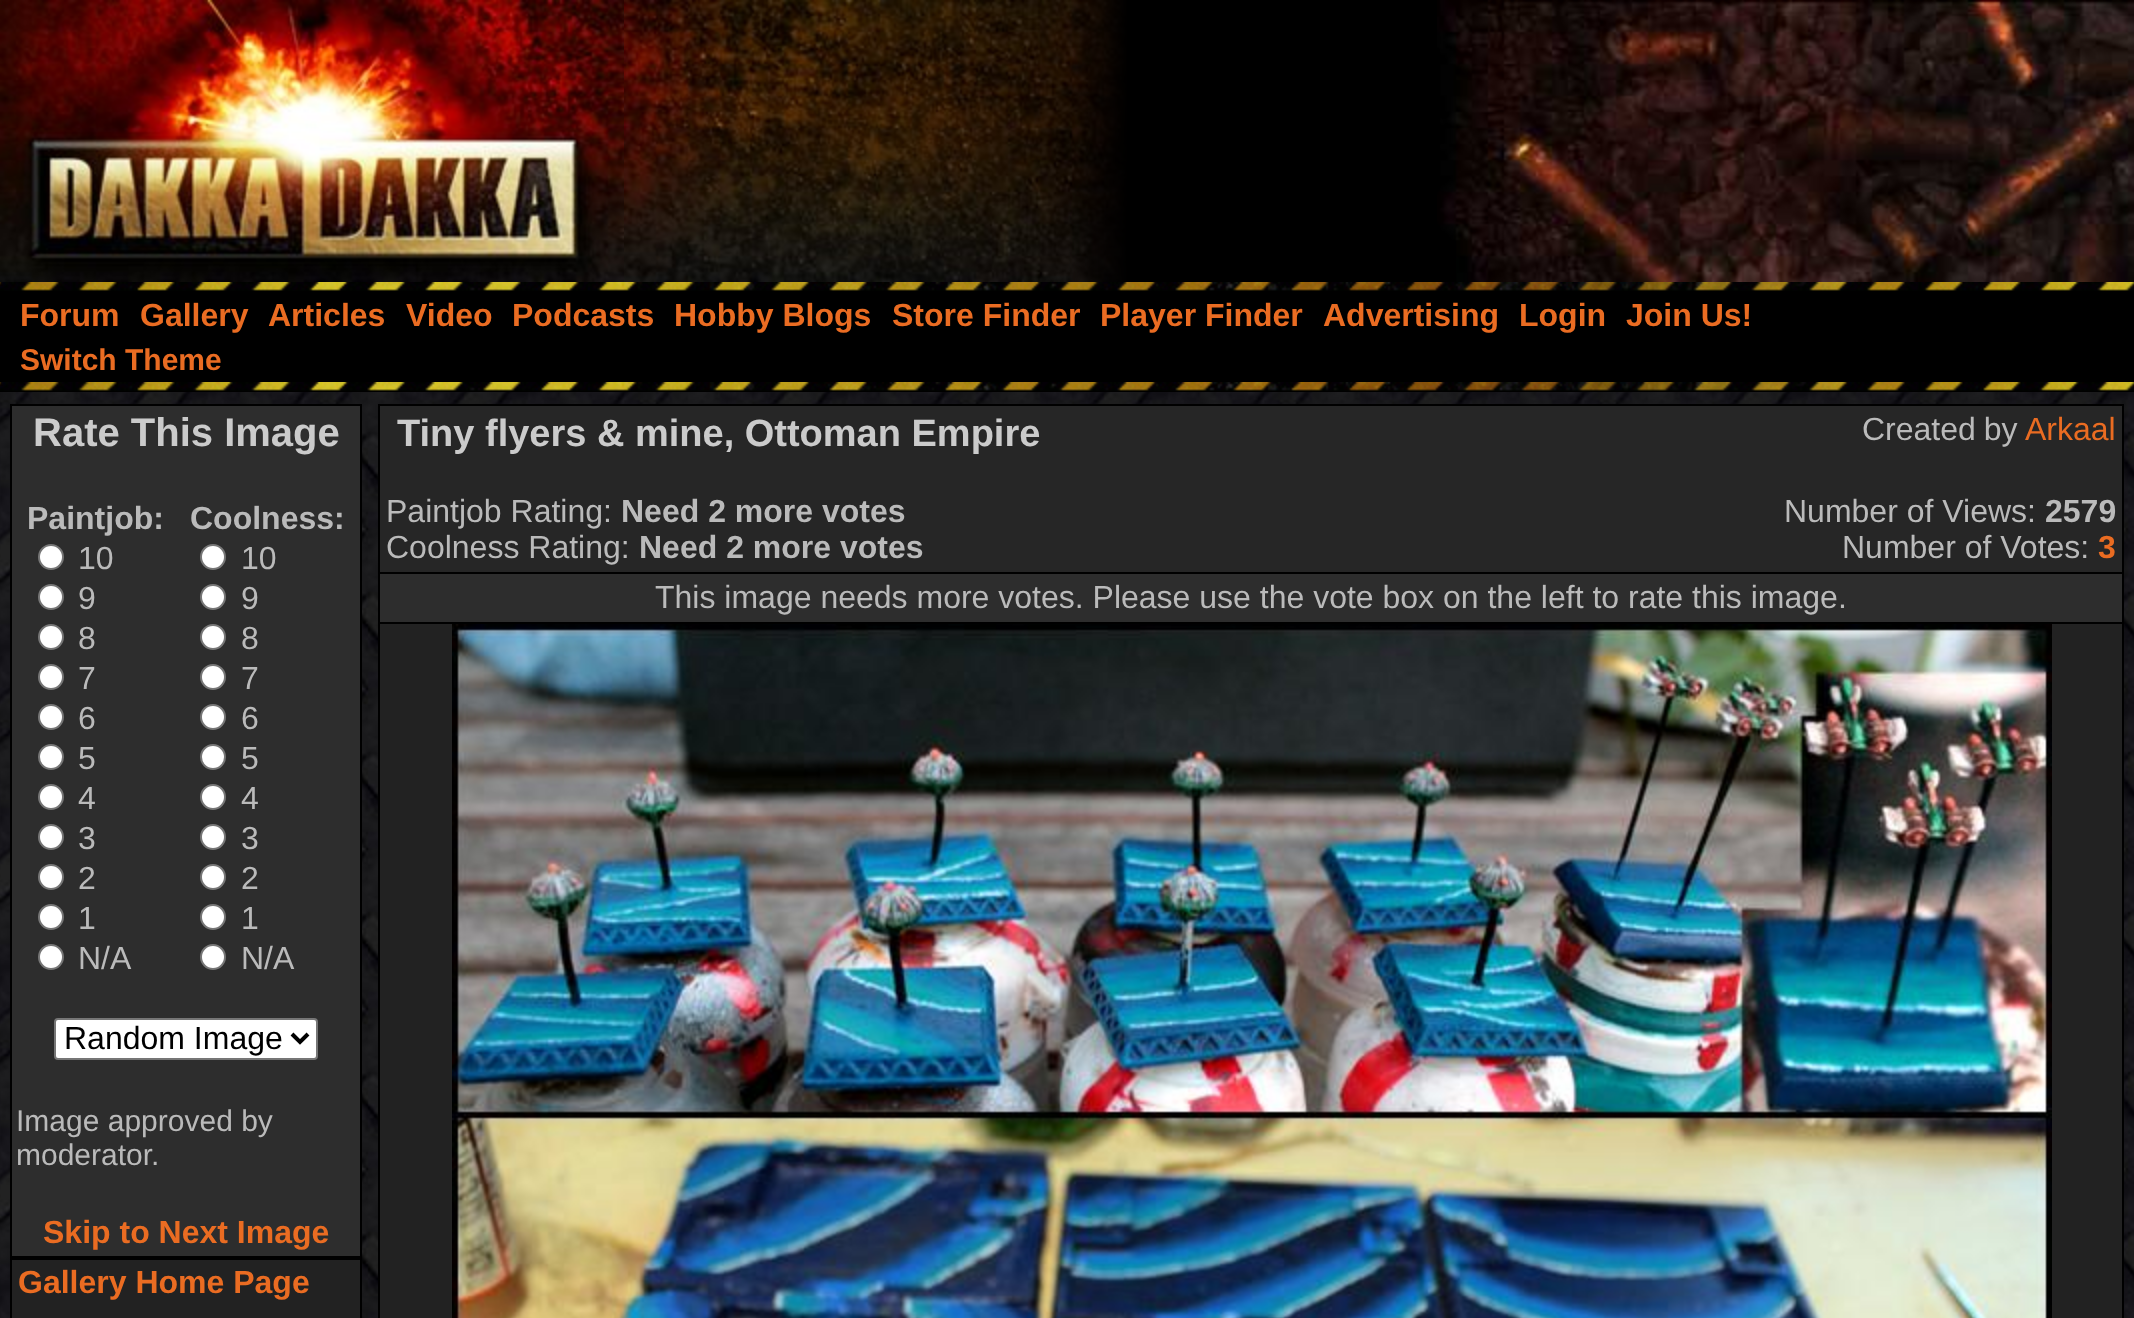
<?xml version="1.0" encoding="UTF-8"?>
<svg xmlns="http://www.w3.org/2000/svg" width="2134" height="1318">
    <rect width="100%" height="100%" fill="#FFFFFF"/>
    <image x="0" y="392" width="2134" height="926" href="img_01.png"/>
    <image x="624" y="0" width="504" height="282" href="img_02.png"/>
    <image x="0" y="0" width="624" height="282" href="img_03.png"/>
    <rect x="1128" y="0" width="309" height="282" fill="#000000"/>
    <image x="1437" y="0" width="697" height="282" href="img_04.png"/>
    <rect x="0" y="291" width="2134" height="91" fill="#000000"/>
    <image x="0" y="282" width="2134" height="9" href="img_05.png"/>
    <text x="20" y="326" font-family="Liberation Sans" font-size="32" font-weight="700" fill="#EA6C22">Forum</text>
    <text x="140" y="326" font-family="Liberation Sans" font-size="32" font-weight="700" fill="#EA6C22">Gallery</text>
    <text x="268" y="326" font-family="Liberation Sans" font-size="32" font-weight="700" fill="#EA6C22">Articles</text>
    <text x="406" y="326" font-family="Liberation Sans" font-size="32" font-weight="700" fill="#EA6C22">Video</text>
    <text x="512" y="326" font-family="Liberation Sans" font-size="32" font-weight="700" fill="#EA6C22">Podcasts</text>
    <text x="674" y="326" font-family="Liberation Sans" font-size="32" font-weight="700" fill="#EA6C22">Hobby Blogs</text>
    <text x="892" y="326" font-family="Liberation Sans" font-size="32" font-weight="700" fill="#EA6C22">Store Finder</text>
    <text x="1100" y="326" font-family="Liberation Sans" font-size="32" font-weight="700" fill="#EA6C22">Player Finder</text>
    <text x="1323" y="326" font-family="Liberation Sans" font-size="32" font-weight="700" fill="#EA6C22">Advertising</text>
    <text x="1519" y="326" font-family="Liberation Sans" font-size="32" font-weight="700" fill="#EA6C22">Login</text>
    <text x="1626" y="326" font-family="Liberation Sans" font-size="32" font-weight="700" fill="#EA6C22">Join Us!</text>
    <text x="20" y="370" font-family="Liberation Sans" font-size="30" font-weight="700" fill="#EA6C22">Switch Theme</text>
    <rect x="0" y="391" width="2134" height="1" fill="#000000"/>
    <image x="0" y="382" width="2134" height="9" href="img_05.png"/>
    <rect x="11" y="405" width="350" height="852" fill="none" stroke="#000000" stroke-width="2"/>
    <rect x="12" y="406" width="348" height="850" fill="#2D2D2D"/>
    <text x="33" y="446" font-family="Liberation Sans" font-size="40" font-weight="700" fill="#CBCBCB">Rate This Image</text>
    <text x="27" y="529" font-family="Liberation Sans" font-size="32" font-weight="700" fill="#BABABA">Paintjob:</text>
    <circle cx="51" cy="557" r="12" fill="#FFFFFF" stroke="#767676" stroke-width="2"/>
    <text x="78" y="569" font-family="Liberation Sans" font-size="32" fill="#BABABA">10</text>
    <circle cx="51" cy="597" r="12" fill="#FFFFFF" stroke="#767676" stroke-width="2"/>
    <text x="78" y="609" font-family="Liberation Sans" font-size="32" fill="#BABABA">9</text>
    <circle cx="51" cy="637" r="12" fill="#FFFFFF" stroke="#767676" stroke-width="2"/>
    <text x="78" y="649" font-family="Liberation Sans" font-size="32" fill="#BABABA">8</text>
    <circle cx="51" cy="677" r="12" fill="#FFFFFF" stroke="#767676" stroke-width="2"/>
    <text x="78" y="689" font-family="Liberation Sans" font-size="32" fill="#BABABA">7</text>
    <circle cx="51" cy="717" r="12" fill="#FFFFFF" stroke="#767676" stroke-width="2"/>
    <text x="78" y="729" font-family="Liberation Sans" font-size="32" fill="#BABABA">6</text>
    <circle cx="51" cy="757" r="12" fill="#FFFFFF" stroke="#767676" stroke-width="2"/>
    <text x="78" y="769" font-family="Liberation Sans" font-size="32" fill="#BABABA">5</text>
    <circle cx="51" cy="797" r="12" fill="#FFFFFF" stroke="#767676" stroke-width="2"/>
    <text x="78" y="809" font-family="Liberation Sans" font-size="32" fill="#BABABA">4</text>
    <circle cx="51" cy="837" r="12" fill="#FFFFFF" stroke="#767676" stroke-width="2"/>
    <text x="78" y="849" font-family="Liberation Sans" font-size="32" fill="#BABABA">3</text>
    <circle cx="51" cy="877" r="12" fill="#FFFFFF" stroke="#767676" stroke-width="2"/>
    <text x="78" y="889" font-family="Liberation Sans" font-size="32" fill="#BABABA">2</text>
    <circle cx="51" cy="917" r="12" fill="#FFFFFF" stroke="#767676" stroke-width="2"/>
    <text x="78" y="929" font-family="Liberation Sans" font-size="32" fill="#BABABA">1</text>
    <circle cx="51" cy="957" r="12" fill="#FFFFFF" stroke="#767676" stroke-width="2"/>
    <text x="78" y="969" font-family="Liberation Sans" font-size="32" fill="#BABABA">N/A</text>
    <text x="190" y="529" font-family="Liberation Sans" font-size="32" font-weight="700" fill="#BABABA">Coolness:</text>
    <circle cx="213" cy="557" r="12" fill="#FFFFFF" stroke="#767676" stroke-width="2"/>
    <text x="241" y="569" font-family="Liberation Sans" font-size="32" fill="#BABABA">10</text>
    <circle cx="213" cy="597" r="12" fill="#FFFFFF" stroke="#767676" stroke-width="2"/>
    <text x="241" y="609" font-family="Liberation Sans" font-size="32" fill="#BABABA">9</text>
    <circle cx="213" cy="637" r="12" fill="#FFFFFF" stroke="#767676" stroke-width="2"/>
    <text x="241" y="649" font-family="Liberation Sans" font-size="32" fill="#BABABA">8</text>
    <circle cx="213" cy="677" r="12" fill="#FFFFFF" stroke="#767676" stroke-width="2"/>
    <text x="241" y="689" font-family="Liberation Sans" font-size="32" fill="#BABABA">7</text>
    <circle cx="213" cy="717" r="12" fill="#FFFFFF" stroke="#767676" stroke-width="2"/>
    <text x="241" y="729" font-family="Liberation Sans" font-size="32" fill="#BABABA">6</text>
    <circle cx="213" cy="757" r="12" fill="#FFFFFF" stroke="#767676" stroke-width="2"/>
    <text x="241" y="769" font-family="Liberation Sans" font-size="32" fill="#BABABA">5</text>
    <circle cx="213" cy="797" r="12" fill="#FFFFFF" stroke="#767676" stroke-width="2"/>
    <text x="241" y="809" font-family="Liberation Sans" font-size="32" fill="#BABABA">4</text>
    <circle cx="213" cy="837" r="12" fill="#FFFFFF" stroke="#767676" stroke-width="2"/>
    <text x="241" y="849" font-family="Liberation Sans" font-size="32" fill="#BABABA">3</text>
    <circle cx="213" cy="877" r="12" fill="#FFFFFF" stroke="#767676" stroke-width="2"/>
    <text x="241" y="889" font-family="Liberation Sans" font-size="32" fill="#BABABA">2</text>
    <circle cx="213" cy="917" r="12" fill="#FFFFFF" stroke="#767676" stroke-width="2"/>
    <text x="241" y="929" font-family="Liberation Sans" font-size="32" fill="#BABABA">1</text>
    <circle cx="213" cy="957" r="12" fill="#FFFFFF" stroke="#767676" stroke-width="2"/>
    <text x="241" y="969" font-family="Liberation Sans" font-size="32" fill="#BABABA">N/A</text>
    <rect x="55" y="1019" width="262" height="40" rx="3" fill="#FFFFFF" stroke="#767676" stroke-width="2"/>
    <path d="M 292 1034 L 300 1042 L 308 1034" fill="none" stroke="#000000" stroke-width="4"/>
    <text x="64" y="1049" font-family="Liberation Sans" font-size="32" fill="#000000">Random Image</text>
    <text font-family="Liberation Sans" font-size="30" fill="#BABABA">
        <tspan x="16" y="1131">Image approved by</tspan>
        <tspan x="16" y="1165">moderator.</tspan>
    </text>
    <text x="43" y="1243" font-family="Liberation Sans" font-size="32" font-weight="700" fill="#EA6C22">Skip to Next Image</text>
    <rect x="11" y="1259" width="350" height="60" fill="none" stroke="#000000" stroke-width="2"/>
    <rect x="12" y="1260" width="348" height="58" fill="#222222"/>
    <text x="18" y="1293" font-family="Liberation Sans" font-size="32" font-weight="700" fill="#EA6C22">Gallery Home Page</text>
    <rect x="379" y="405" width="1744" height="218" fill="none" stroke="#000000" stroke-width="2"/>
    <rect x="380" y="406" width="1742" height="166" fill="#262626"/>
    <text x="397" y="446" font-family="Liberation Sans" font-size="38" font-weight="700" fill="#CBCBCB">Tiny flyers &amp; mine, Ottoman Empire</text>
    <text x="1862" y="440" word-spacing="-1" font-family="Liberation Sans" font-size="32" fill="#BABABA">Created by</text>
    <text x="2025" y="440" font-family="Liberation Sans" font-size="32" fill="#EA6C22">Arkaal</text>
    <text x="386" y="522" font-family="Liberation Sans" font-size="32" fill="#BABABA">Paintjob Rating:</text>
    <text x="621" y="522" font-family="Liberation Sans" font-size="32" font-weight="700" fill="#BABABA">Need 2 more votes</text>
    <text x="1784" y="522" font-family="Liberation Sans" font-size="32" fill="#BABABA">Number of Views:</text>
    <text x="2045" y="522" font-family="Liberation Sans" font-size="32" font-weight="700" fill="#BABABA">2579</text>
    <text x="386" y="558" font-family="Liberation Sans" font-size="32" fill="#BABABA">Coolness Rating:</text>
    <text x="639" y="558" font-family="Liberation Sans" font-size="32" font-weight="700" fill="#BABABA">Need 2 more votes</text>
    <text x="1842" y="558" font-family="Liberation Sans" font-size="32" fill="#BABABA">Number of Votes:</text>
    <text x="2098" y="558" font-family="Liberation Sans" font-size="32" font-weight="700" fill="#EA6C22">3</text>
    <rect x="380" y="574" width="1742" height="48" fill="#2D2D2D"/>
    <rect x="380" y="572" width="1742" height="2" fill="#000000"/>
    <text x="655" y="608" font-family="Liberation Sans" font-size="32" fill="#BABABA">This image needs more votes. Please use the vote box on the left to rate this image.</text>
    <rect x="2122" y="624" width="2" height="694" fill="#000000"/>
    <rect x="378" y="624" width="2" height="694" fill="#000000"/>
    <rect x="380" y="624" width="1742" height="694" fill="#222222"/>
    <image x="452" y="624" width="1600" height="694" href="img_06.png"/>
</svg>
